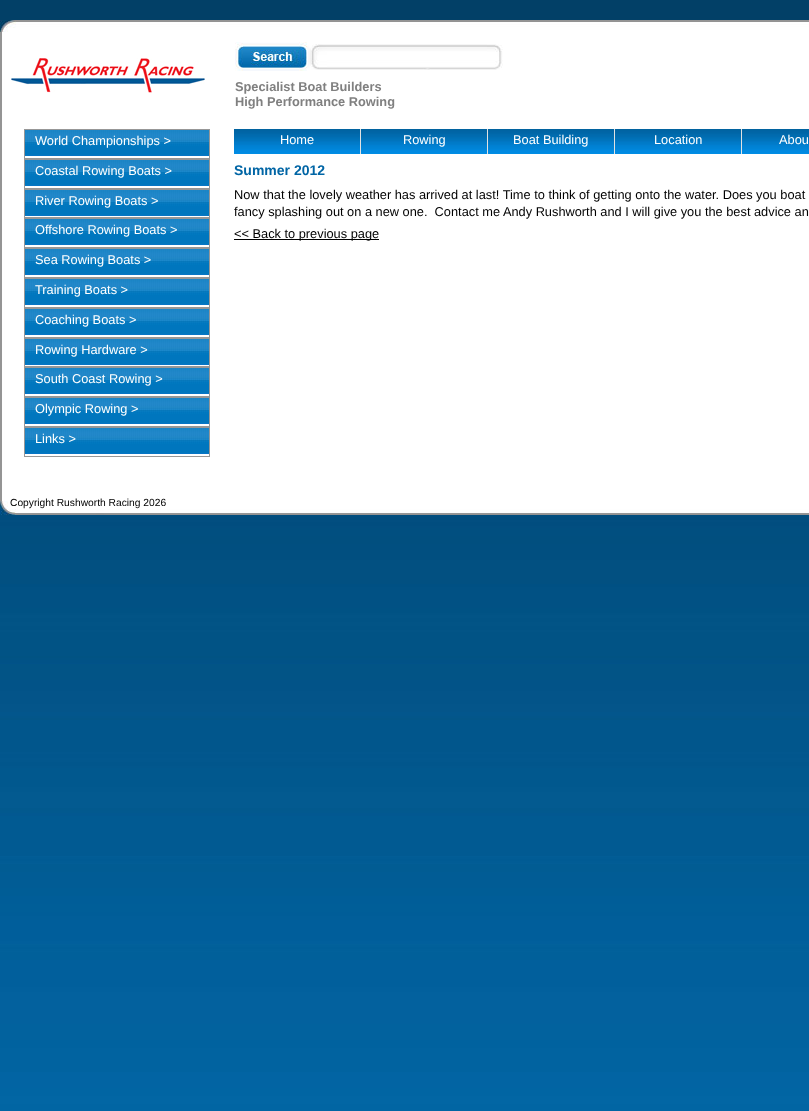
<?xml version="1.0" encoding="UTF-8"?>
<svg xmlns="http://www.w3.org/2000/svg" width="809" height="1111">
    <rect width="100%" height="100%" fill="#FFFFFF"/>
    <image x="0" y="0" width="809" height="1111" href="img_01.png"/>
    <image x="0" y="20" width="809" height="12" href="img_02.png"/>
    <image x="0" y="32" width="809" height="469" href="img_03.png"/>
    <image x="0" y="501" width="809" height="14" href="img_04.png"/>
    <image x="11" y="58" width="194" height="35" href="img_05.png"/>
    <image x="235" y="42" width="76" height="29" href="img_06.png"/>
    <image x="311" y="44" width="192" height="26" href="img_07.png"/>
    <text font-family="Liberation Sans" font-size="12.8" font-weight="700" fill="#808080">
        <tspan x="235" y="91">Specialist Boat Builders</tspan>
        <tspan x="235" y="106">High Performance Rowing</tspan>
    </text>
    <image x="25" y="130" width="184" height="26" href="img_08.png"/>
    <rect x="24.5" y="129.5" width="185" height="29" fill="none" stroke="#979797"/>
    <text x="35" y="145" font-family="Liberation Sans" font-size="12.8" fill="#FFFFFF">World Championships &gt;</text>
    <image x="25" y="160" width="184" height="26" href="img_08.png"/>
    <rect x="24.5" y="159.5" width="185" height="29" fill="none" stroke="#979797"/>
    <text x="35" y="175" font-family="Liberation Sans" font-size="12.8" fill="#FFFFFF">Coastal Rowing Boats &gt;</text>
    <image x="25" y="190" width="184" height="26" href="img_08.png"/>
    <rect x="24.5" y="189.5" width="185" height="28" fill="none" stroke="#979797"/>
    <text x="35" y="205" font-family="Liberation Sans" font-size="12.8" fill="#FFFFFF">River Rowing Boats &gt;</text>
    <image x="25" y="219" width="184" height="26" href="img_08.png"/>
    <rect x="24.5" y="218.5" width="185" height="29" fill="none" stroke="#979797"/>
    <text x="35" y="234" font-family="Liberation Sans" font-size="12.8" fill="#FFFFFF">Offshore Rowing Boats &gt;</text>
    <image x="25" y="249" width="184" height="26" href="img_08.png"/>
    <rect x="24.5" y="248.5" width="185" height="29" fill="none" stroke="#979797"/>
    <text x="35" y="264" font-family="Liberation Sans" font-size="12.8" fill="#FFFFFF">Sea Rowing Boats &gt;</text>
    <image x="25" y="279" width="184" height="26" href="img_08.png"/>
    <rect x="24.5" y="278.5" width="185" height="29" fill="none" stroke="#979797"/>
    <text x="35" y="294" font-family="Liberation Sans" font-size="12.8" fill="#FFFFFF">Training Boats &gt;</text>
    <image x="25" y="309" width="184" height="26" href="img_08.png"/>
    <rect x="24.5" y="308.5" width="185" height="29" fill="none" stroke="#979797"/>
    <text x="35" y="324" font-family="Liberation Sans" font-size="12.8" fill="#FFFFFF">Coaching Boats &gt;</text>
    <image x="25" y="339" width="184" height="26" href="img_08.png"/>
    <rect x="24.5" y="338.5" width="185" height="28" fill="none" stroke="#979797"/>
    <text x="35" y="354" font-family="Liberation Sans" font-size="12.8" fill="#FFFFFF">Rowing Hardware &gt;</text>
    <image x="25" y="368" width="184" height="26" href="img_08.png"/>
    <rect x="24.5" y="367.5" width="185" height="29" fill="none" stroke="#979797"/>
    <text x="35" y="383" font-family="Liberation Sans" font-size="12.8" fill="#FFFFFF">South Coast Rowing &gt;</text>
    <image x="25" y="398" width="184" height="26" href="img_08.png"/>
    <rect x="24.5" y="397.5" width="185" height="29" fill="none" stroke="#979797"/>
    <text x="35" y="413" font-family="Liberation Sans" font-size="12.8" fill="#FFFFFF">Olympic Rowing &gt;</text>
    <image x="25" y="428" width="184" height="26" href="img_08.png"/>
    <rect x="24.5" y="427.5" width="185" height="29" fill="none" stroke="#979797"/>
    <text x="35" y="443" font-family="Liberation Sans" font-size="12.8" fill="#FFFFFF">Links &gt;</text>
    <image x="234" y="129" width="126" height="25" href="img_09.png"/>
    <rect x="360" y="129" width="1" height="25" fill="#E2E2E2"/>
    <text x="280" y="144" font-family="Liberation Sans" font-size="12.8" fill="#FFFFFF">Home</text>
    <image x="361" y="129" width="126" height="25" href="img_09.png"/>
    <rect x="487" y="129" width="1" height="25" fill="#E2E2E2"/>
    <text x="403" y="144" font-family="Liberation Sans" font-size="12.8" fill="#FFFFFF">Rowing</text>
    <image x="488" y="129" width="126" height="25" href="img_09.png"/>
    <rect x="614" y="129" width="1" height="25" fill="#E2E2E2"/>
    <text x="513" y="144" font-family="Liberation Sans" font-size="12.8" fill="#FFFFFF">Boat Building</text>
    <image x="615" y="129" width="126" height="25" href="img_09.png"/>
    <rect x="741" y="129" width="1" height="25" fill="#E2E2E2"/>
    <text x="654" y="144" font-family="Liberation Sans" font-size="12.8" fill="#FFFFFF">Location</text>
    <image x="742" y="129" width="67" height="25" href="img_10.png"/>
    <text x="779" y="144" font-family="Liberation Sans" font-size="12.8" fill="#FFFFFF">Abou</text>
    <text x="234" y="175" font-family="Liberation Sans" font-size="14" font-weight="700" fill="#0065A5">Summer 2012</text>
    <text font-family="Liberation Sans" font-size="12.8" fill="#000000" xml:space="preserve"><tspan x="234" y="199">Now that the lovely weather has arrived at last! Time to think of getting onto the water. Does you boat</tspan><tspan x="234" y="216">fancy splashing out on a new one.  Contact me Andy Rushworth and I will give you the best advice an</tspan></text>
    <rect x="234" y="239" width="145" height="1" fill="#000000"/>
    <text x="234" y="238" font-family="Liberation Sans" font-size="12.8" fill="#000000">&lt;&lt; Back to previous page</text>
    <text x="10" y="506" font-family="Liberation Sans" font-size="10.25" fill="#000000">Copyright Rushworth Racing 2026</text>
</svg>
